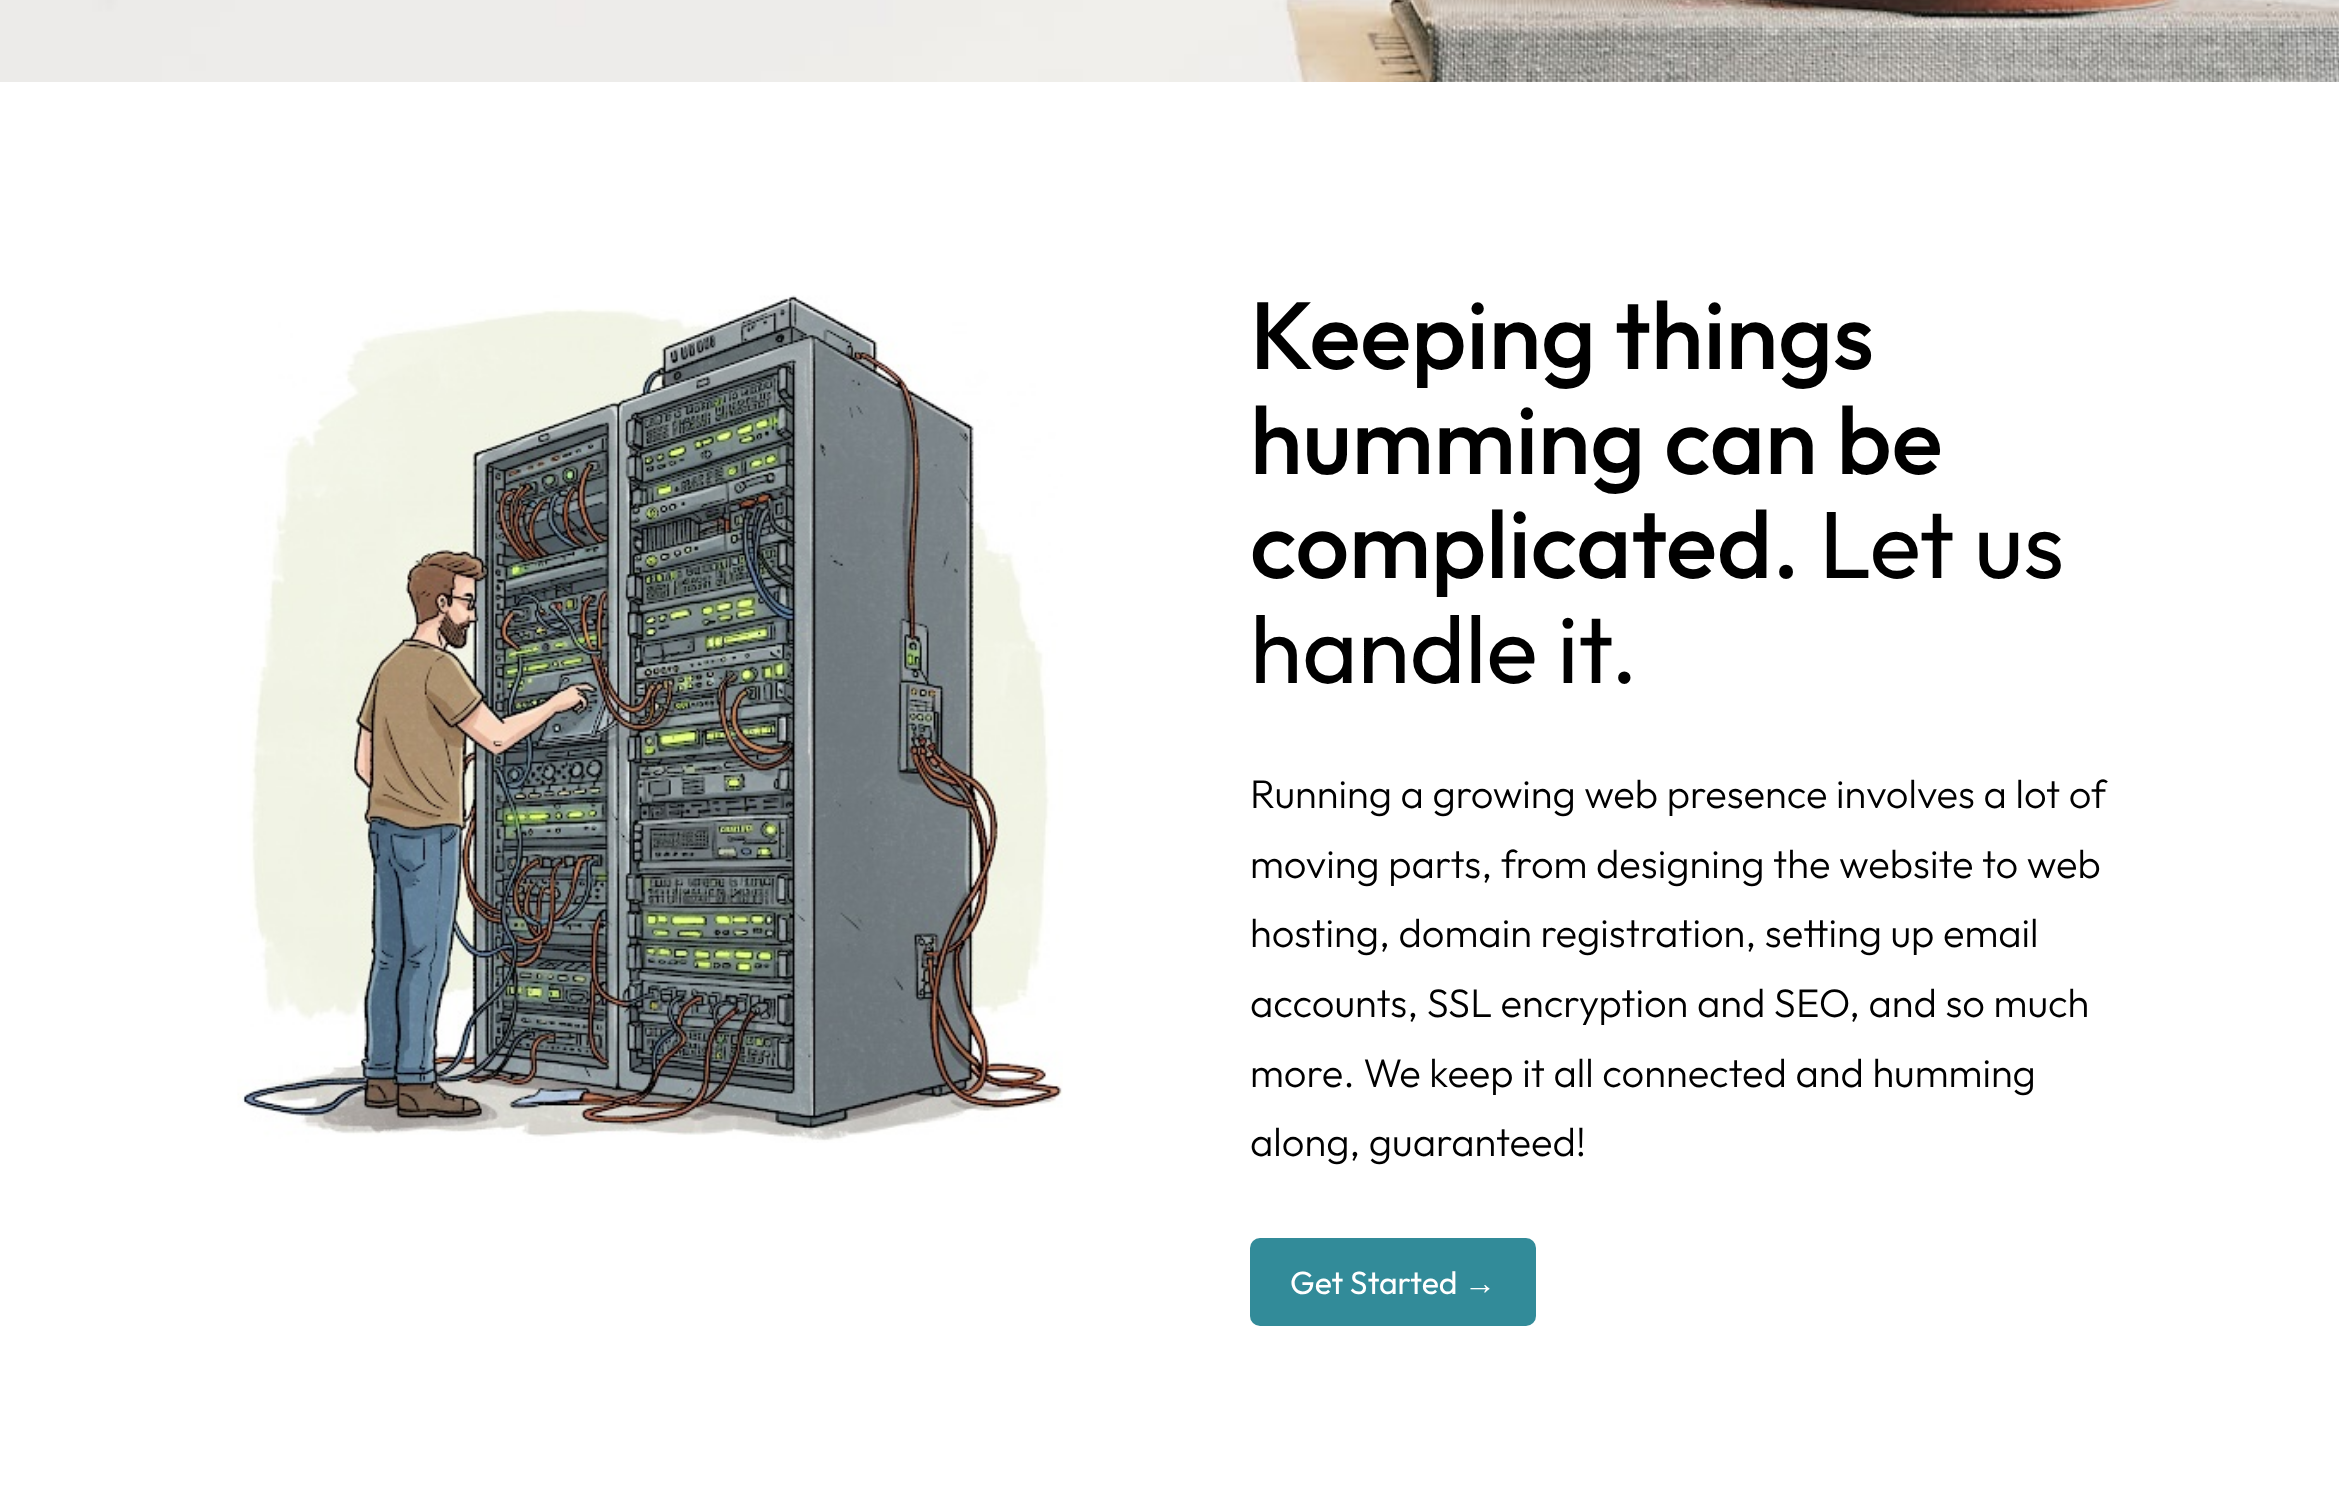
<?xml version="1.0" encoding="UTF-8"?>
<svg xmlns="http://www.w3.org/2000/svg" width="2339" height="1496">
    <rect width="100%" height="100%" fill="#FFFFFF"/>
    <image x="0" y="0" width="2339" height="82" href="img_01.png"/>
    <image x="237" y="295" width="826" height="848" href="img_02.png"/>
    <text font-family="Outfit" font-size="95.25" font-weight="500" fill="#000000">
        <tspan x="1250" y="369">Keeping things</tspan>
        <tspan x="1250" y="474">humming can be</tspan>
        <tspan x="1250" y="578">complicated.</tspan>
    </text>
    <text x="1819" y="578" font-family="Outfit" font-size="95.25" fill="#000000">Let us</text>
    <text x="1250" y="683" font-family="Outfit" font-size="95.25" fill="#000000">handle it.</text>
    <text font-family="Outfit" font-size="39.9" font-weight="300" fill="#000000">
        <tspan x="1250" y="808">Running a growing web presence involves a lot of</tspan>
        <tspan x="1250" y="878">moving parts, from designing the website to web</tspan>
        <tspan x="1250" y="947">hosting, domain registration, setting up email</tspan>
        <tspan x="1250" y="1017">accounts, SSL encryption and SEO, and so much</tspan>
        <tspan x="1250" y="1087">more. We keep it all connected and humming</tspan>
        <tspan x="1250" y="1156">along, guaranteed!</tspan>
    </text>
    <rect x="1250" y="1238" width="286" height="88" rx="10" fill="#328B99"/>
    <text x="1290" y="1294" font-family="Outfit" font-size="32" fill="#FFFFFF">Get Started</text>
    <text x="1464" y="1294" font-family="Liberation Sans" font-size="32" fill="#FFFFFF">→</text>
</svg>
